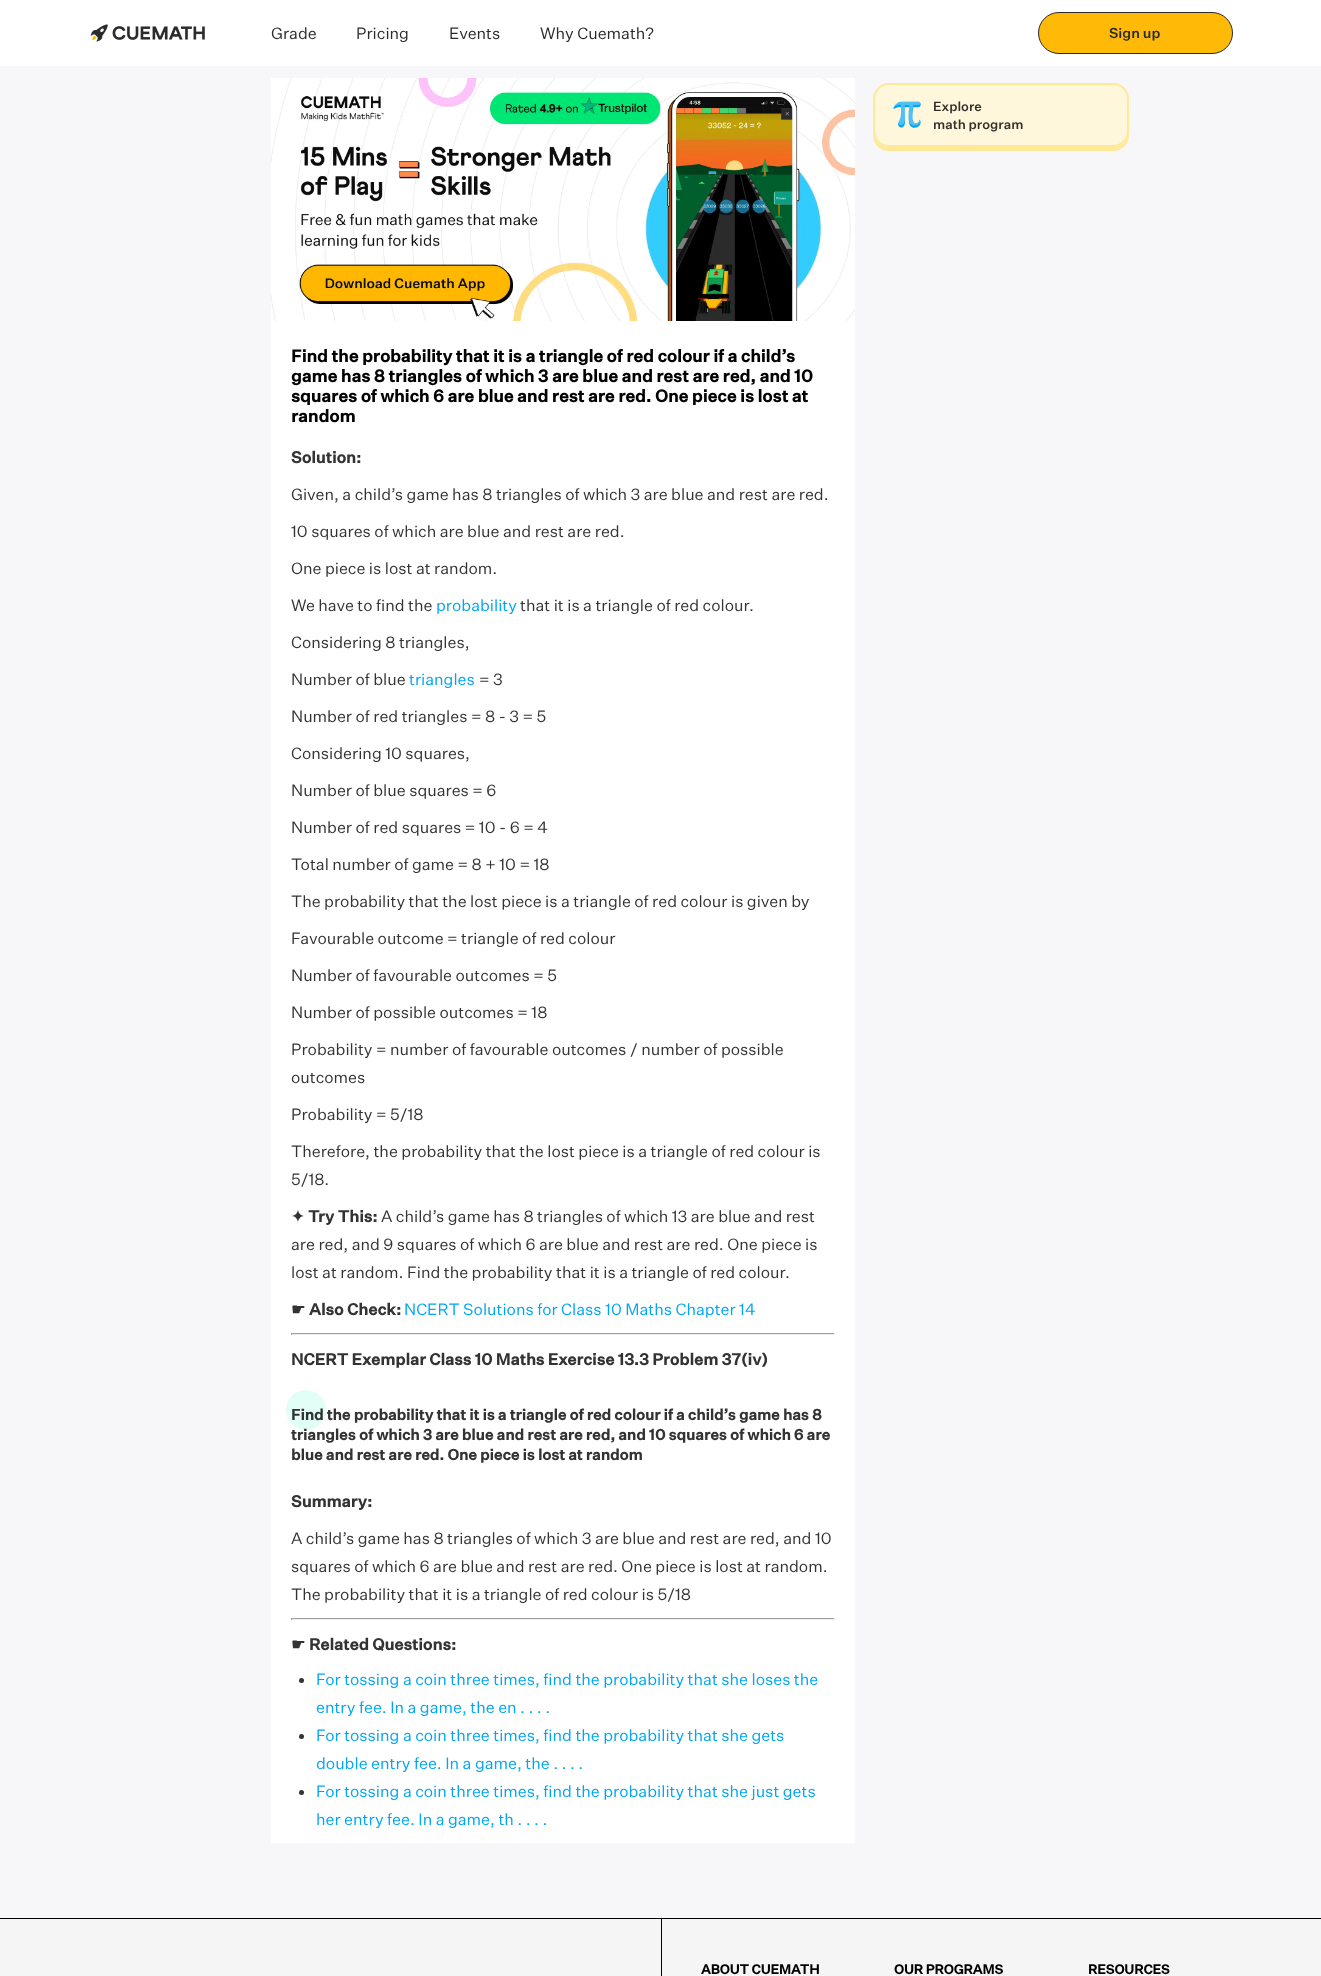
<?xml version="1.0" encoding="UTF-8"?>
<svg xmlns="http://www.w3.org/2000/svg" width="1321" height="1976">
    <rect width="100%" height="100%" fill="#F7F7FA"/>
    <rect x="0" y="0" width="1321" height="66" fill="#FFFFFF"/>
    <image x="90" y="24" width="115" height="18" href="img_01.png"/>
    <text x="271" y="39" font-family="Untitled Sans" font-size="16" fill="#2B2B2B">Grade</text>
    <text x="356" y="39" font-family="Untitled Sans" font-size="16" fill="#2B2B2B">Pricing</text>
    <text x="449" y="39" font-family="Untitled Sans" font-size="16" fill="#2B2B2B">Events</text>
    <text x="540" y="39" font-family="Untitled Sans" font-size="16" fill="#2B2B2B">Why Cuemath?</text>
    <rect x="1038.5" y="12.5" width="194" height="41" rx="20.5" fill="#FFBA07" stroke="#2B2B2B"/>
    <text x="1109" y="38" font-family="Untitled Sans" font-size="14" font-weight="500" fill="#2B2B2B">Sign up</text>
    <path d="M 873 131 V 135 C 873 144 880 151 889 151 H 1113 C 1122 151 1129 144 1129 135 V 131 C 1129 140 1122 147 1113 147 H 889 C 880 147 873 140 873 131 Z" fill="#FFE896"/>
    <rect x="874" y="84" width="254" height="62" rx="15" fill="#FFF7DB" stroke="#FFE896" stroke-width="2"/>
    <image x="893" y="101" width="28" height="27" href="img_02.png"/>
    <text font-family="Untitled Sans" font-size="13" font-weight="500" fill="#33312C">
        <tspan x="933" y="111">Explore</tspan>
        <tspan x="933" y="129">math program</tspan>
    </text>
    <image x="271" y="78" width="584" height="243" href="img_03.png"/>
    <rect x="271" y="321" width="584" height="1522" fill="#FFFFFF"/>
    <text font-family="Untitled Sans" font-size="17" font-weight="700" fill="#000000">
        <tspan x="291" y="362">Find the probability that it is a triangle of red colour if a child’s</tspan>
        <tspan x="291" y="382">game has 8 triangles of which 3 are blue and rest are red, and 10</tspan>
        <tspan x="291" y="402">squares of which 6 are blue and rest are red. One piece is lost at</tspan>
        <tspan x="291" y="422">random</tspan>
    </text>
    <text x="291" y="463" font-family="Untitled Sans" font-size="16" font-weight="700" fill="#333333">Solution:</text>
    <text x="291" y="500" font-family="Untitled Sans" font-size="16" fill="#333333">Given, a child’s game has 8 triangles of which 3 are blue and rest are red.</text>
    <text x="291" y="537" font-family="Untitled Sans" font-size="16" fill="#333333">10 squares of which are blue and rest are red.</text>
    <text x="291" y="574" font-family="Untitled Sans" font-size="16" fill="#333333">One piece is lost at random.</text>
    <text x="291" y="611" font-family="Untitled Sans" font-size="16" fill="#333333">We have to find the</text>
    <text x="436" y="611" font-family="Untitled Sans" font-size="16" fill="#01A5F2">probability</text>
    <text x="520" y="611" font-family="Untitled Sans" font-size="16" fill="#333333">that it is a triangle of red colour.</text>
    <text x="291" y="648" font-family="Untitled Sans" font-size="16" fill="#333333">Considering 8 triangles,</text>
    <text x="291" y="685" font-family="Untitled Sans" font-size="16" fill="#333333">Number of blue</text>
    <text x="409" y="685" font-family="Untitled Sans" font-size="16" fill="#01A5F2">triangles</text>
    <text x="479" y="685" font-family="Untitled Sans" font-size="16" fill="#333333">= 3</text>
    <text x="291" y="722" font-family="Untitled Sans" font-size="16" fill="#333333">Number of red triangles = 8 - 3 = 5</text>
    <text x="291" y="759" font-family="Untitled Sans" font-size="16" fill="#333333">Considering 10 squares,</text>
    <text x="291" y="796" font-family="Untitled Sans" font-size="16" fill="#333333">Number of blue squares = 6</text>
    <text x="291" y="833" font-family="Untitled Sans" font-size="16" fill="#333333">Number of red squares = 10 - 6 = 4</text>
    <text x="291" y="870" font-family="Untitled Sans" font-size="16" fill="#333333">Total number of game = 8 + 10 = 18</text>
    <text x="291" y="907" font-family="Untitled Sans" font-size="16" fill="#333333">The probability that the lost piece is a triangle of red colour is given by</text>
    <text x="291" y="944" font-family="Untitled Sans" font-size="16" fill="#333333">Favourable outcome = triangle of red colour</text>
    <text x="291" y="981" font-family="Untitled Sans" font-size="16" fill="#333333">Number of favourable outcomes = 5</text>
    <text x="291" y="1018" font-family="Untitled Sans" font-size="16" fill="#333333">Number of possible outcomes = 18</text>
    <text font-family="Untitled Sans" font-size="16" fill="#333333">
        <tspan x="291" y="1055">Probability = number of favourable outcomes / number of possible</tspan>
        <tspan x="291" y="1083">outcomes</tspan>
    </text>
    <text x="291" y="1120" font-family="Untitled Sans" font-size="16" fill="#333333">Probability = 5/18</text>
    <text font-family="Untitled Sans" font-size="16" fill="#333333">
        <tspan x="291" y="1157">Therefore, the probability that the lost piece is a triangle of red colour is</tspan>
        <tspan x="291" y="1185">5/18.</tspan>
    </text>
    <text x="291" y="1222" font-family="DejaVu Sans" font-size="16" font-weight="700" fill="#333333">✦</text>
    <text x="308" y="1222" font-family="Untitled Sans" font-size="16" font-weight="700" fill="#333333">Try This:</text>
    <text x="381" y="1222" font-family="Untitled Sans" font-size="16" fill="#333333">A child’s game has 8 triangles of which 13 are blue and rest</text>
    <text font-family="Untitled Sans" font-size="16" fill="#333333">
        <tspan x="291" y="1250">are red, and 9 squares of which 6 are blue and rest are red. One piece is</tspan>
        <tspan x="291" y="1278">lost at random. Find the probability that it is a triangle of red colour.</tspan>
    </text>
    <text x="291" y="1315" font-family="DejaVu Sans" font-size="16" font-weight="700" fill="#333333">☛</text>
    <text x="309" y="1315" font-family="Untitled Sans" font-size="16" font-weight="700" fill="#333333">Also Check:</text>
    <text x="404" y="1315" font-family="Untitled Sans" font-size="16" fill="#01A5F2">NCERT Solutions for Class 10 Maths Chapter 14</text>
    <rect x="291" y="1333" width="544" height="1" fill="#9F9F9F"/>
    <rect x="834" y="1333" width="1" height="2" fill="#EEEEEE"/>
    <rect x="291" y="1334" width="544" height="1" fill="#EEEEEE"/>
    <rect x="291" y="1333" width="1" height="2" fill="#9F9F9F"/>
    <text x="291" y="1365" font-family="Untitled Sans" font-size="16" font-weight="700" fill="#333333">NCERT Exemplar Class 10 Maths Exercise 13.3 Problem 37(iv)</text>
    <circle cx="306" cy="1410" r="20" fill="#E1FFF6"/>
    <text font-family="Untitled Sans" font-size="15" font-weight="700" fill="#333333">
        <tspan x="291" y="1420">Find the probability that it is a triangle of red colour if a child’s game has 8</tspan>
        <tspan x="291" y="1440">triangles of which 3 are blue and rest are red, and 10 squares of which 6 are</tspan>
        <tspan x="291" y="1460">blue and rest are red. One piece is lost at random</tspan>
    </text>
    <text x="291" y="1507" font-family="Untitled Sans" font-size="16" font-weight="700" fill="#333333">Summary:</text>
    <text font-family="Untitled Sans" font-size="16" fill="#333333">
        <tspan x="291" y="1544">A child’s game has 8 triangles of which 3 are blue and rest are red, and 10</tspan>
        <tspan x="291" y="1572">squares of which 6 are blue and rest are red. One piece is lost at random.</tspan>
        <tspan x="291" y="1600">The probability that it is a triangle of red colour is 5/18</tspan>
    </text>
    <rect x="291" y="1618" width="544" height="1" fill="#9F9F9F"/>
    <rect x="834" y="1618" width="1" height="2" fill="#EEEEEE"/>
    <rect x="291" y="1619" width="544" height="1" fill="#EEEEEE"/>
    <rect x="291" y="1618" width="1" height="2" fill="#9F9F9F"/>
    <text x="291" y="1650" font-family="DejaVu Sans" font-size="16" font-weight="700" fill="#333333">☛</text>
    <text x="309" y="1650" font-family="Untitled Sans" font-size="16" font-weight="700" fill="#333333">Related Questions:</text>
    <circle cx="301.5" cy="1680.5" r="2.5" fill="#333333"/>
    <text font-family="Untitled Sans" font-size="16" fill="#01A5F2">
        <tspan x="316" y="1685">For tossing a coin three times, find the probability that she loses the</tspan>
        <tspan x="316" y="1713">entry fee. In a game, the en . . . .</tspan>
    </text>
    <circle cx="301.5" cy="1736.5" r="2.5" fill="#333333"/>
    <text font-family="Untitled Sans" font-size="16" fill="#01A5F2">
        <tspan x="316" y="1741">For tossing a coin three times, find the probability that she gets</tspan>
        <tspan x="316" y="1769">double entry fee. In a game, the . . . .</tspan>
    </text>
    <circle cx="301.5" cy="1792.5" r="2.5" fill="#333333"/>
    <text font-family="Untitled Sans" font-size="16" fill="#01A5F2">
        <tspan x="316" y="1797">For tossing a coin three times, find the probability that she just gets</tspan>
        <tspan x="316" y="1825">her entry fee. In a game, th . . . .</tspan>
    </text>
    <rect x="0" y="1919" width="1321" height="57" fill="#F5F5F5"/>
    <rect x="0" y="1918" width="1321" height="1" fill="#000000"/>
    <rect x="661" y="1919" width="1" height="57" fill="#000000"/>
    <text x="701" y="1974" font-family="Untitled Sans" font-size="13" font-weight="700" fill="#000000">ABOUT CUEMATH</text>
    <text x="894" y="1974" font-family="Untitled Sans" font-size="13" font-weight="700" fill="#000000">OUR PROGRAMS</text>
    <text x="1088" y="1974" font-family="Untitled Sans" font-size="13" font-weight="700" fill="#000000">RESOURCES</text>
</svg>
